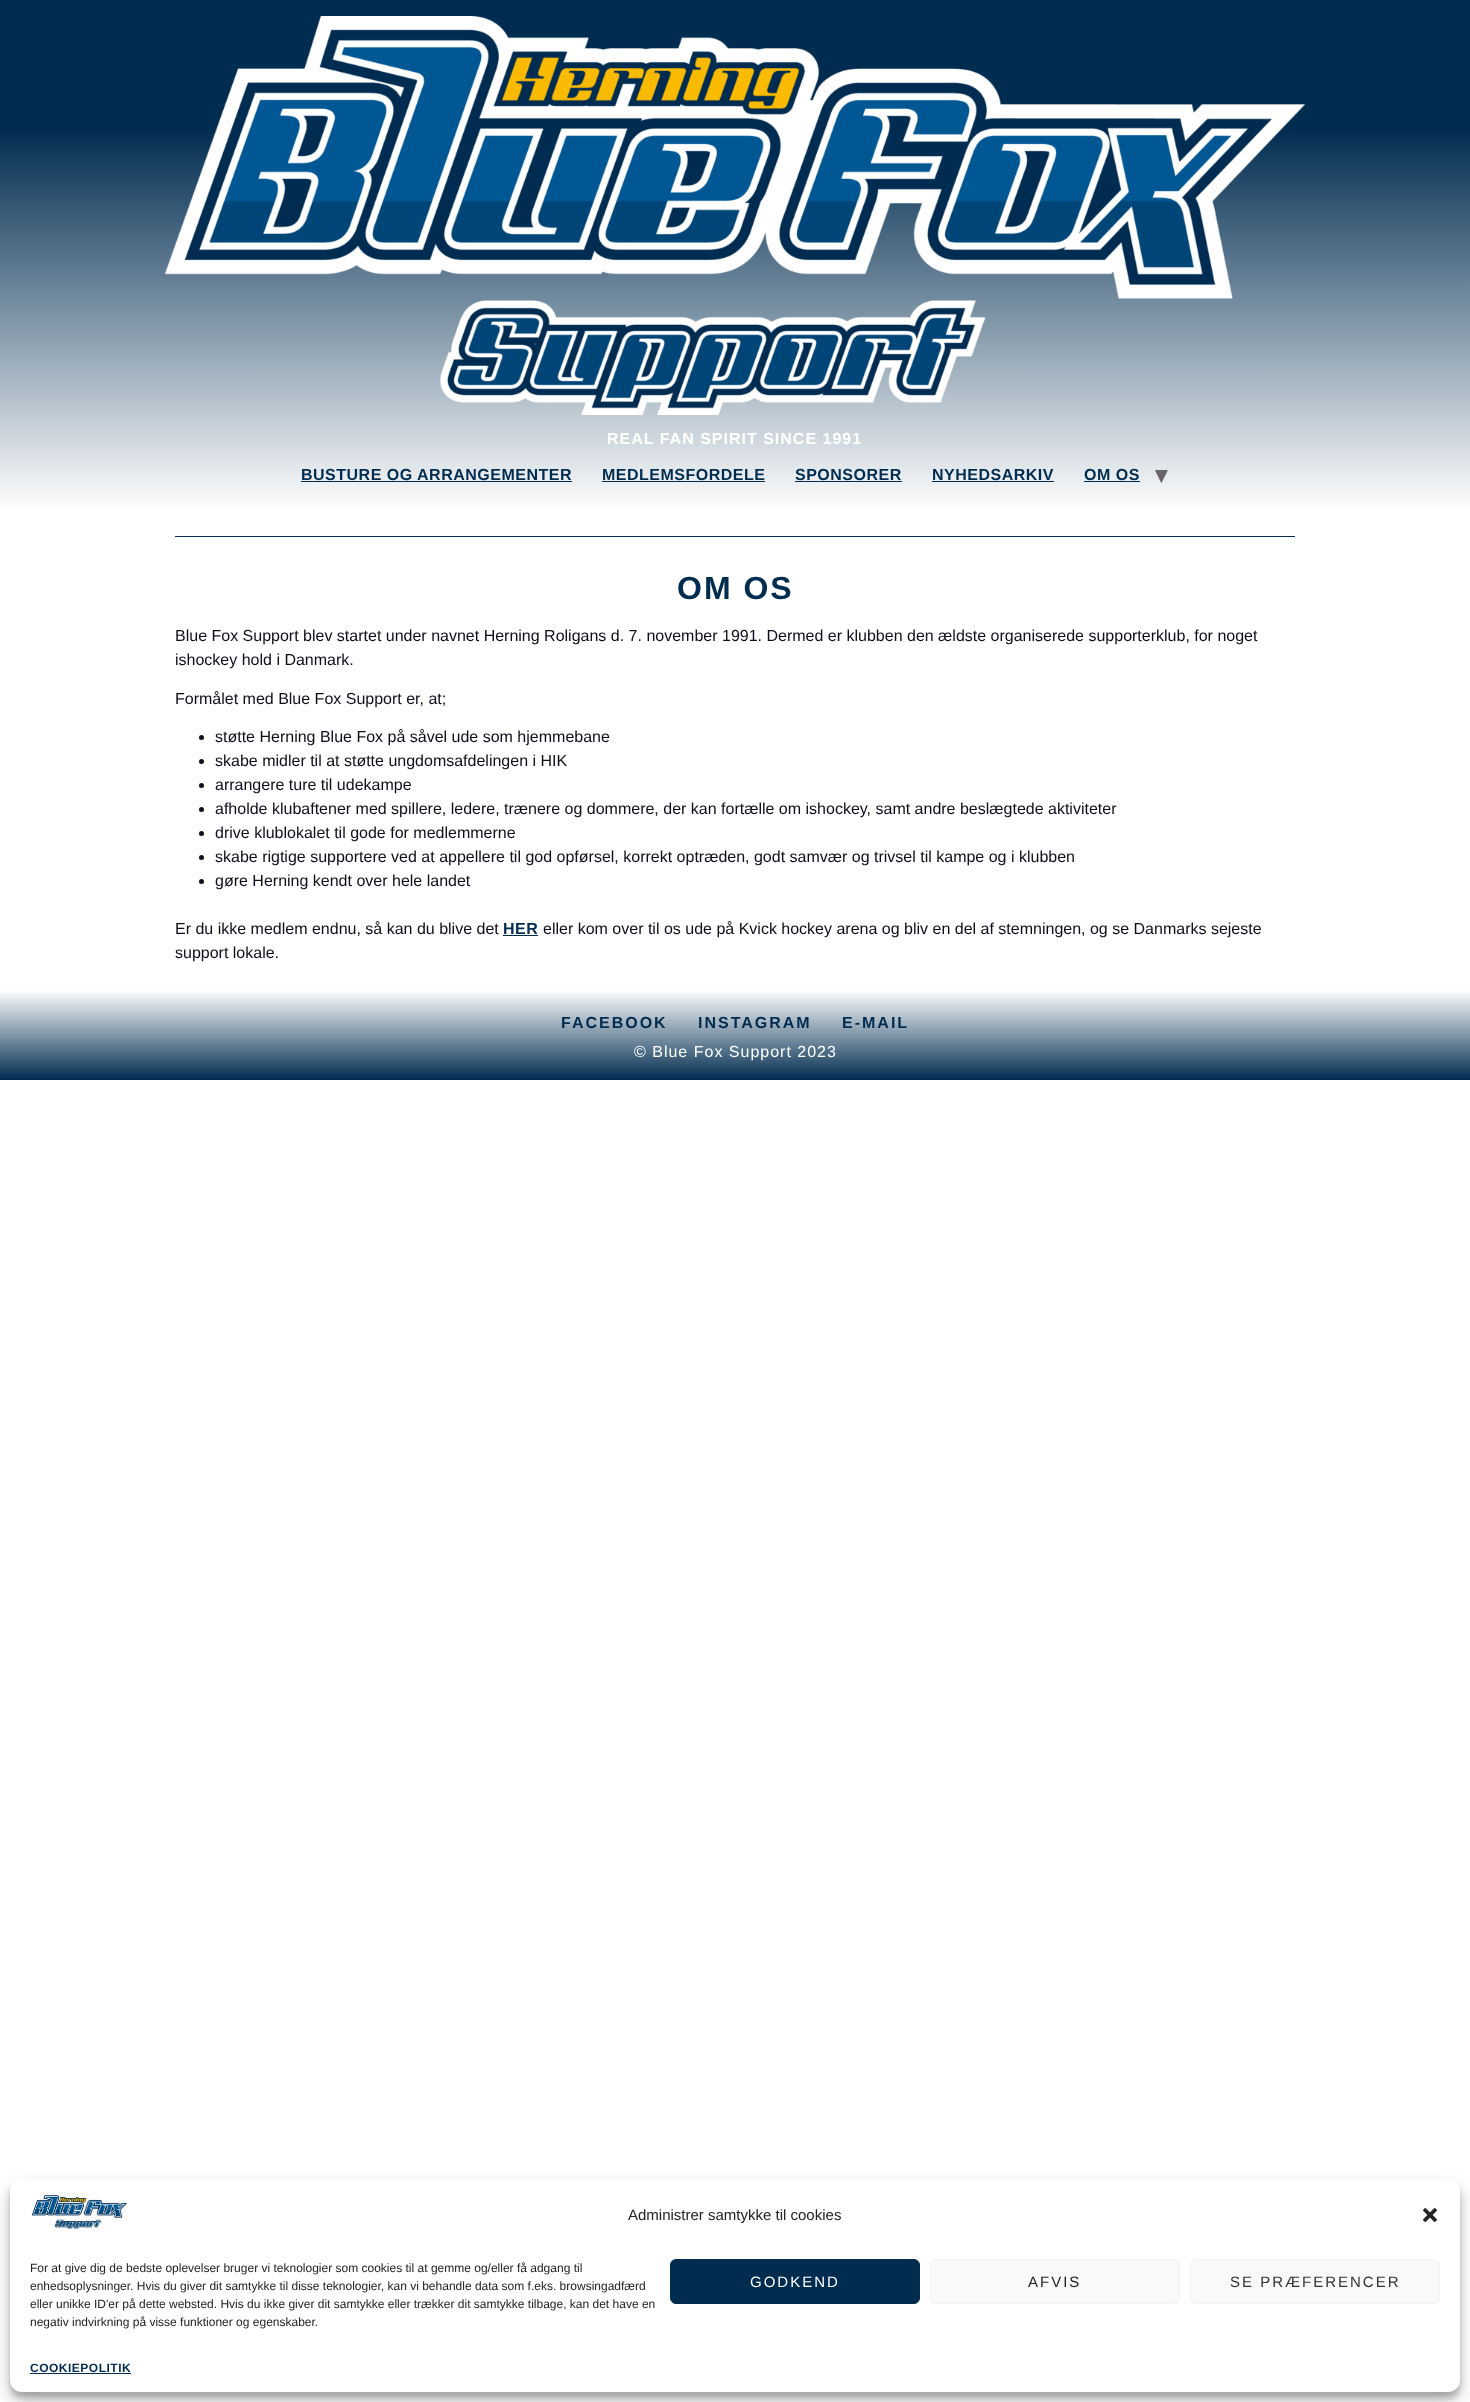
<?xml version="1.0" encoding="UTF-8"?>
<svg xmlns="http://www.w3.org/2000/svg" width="1470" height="2402">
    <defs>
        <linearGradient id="g1" gradientUnits="userSpaceOnUse" x1="735" y1="0" x2="735" y2="511"><stop offset="0.25" stop-color="#002C50"/><stop offset="1" stop-color="#FFFFFF"/></linearGradient>
        <linearGradient id="g2" gradientUnits="userSpaceOnUse" x1="735" y1="990" x2="735" y2="1080"><stop offset="0" stop-color="#FFFFFF"/><stop offset="1" stop-color="#002C50"/></linearGradient>
        <filter id="blur1" x="-50%" y="-200%" width="200%" height="500%"><feGaussianBlur stdDeviation="3"/></filter>
        <filter id="blur2" x="-50%" y="-200%" width="200%" height="500%"><feGaussianBlur stdDeviation="10"/></filter>
    </defs>
    <rect width="100%" height="100%" fill="#FFFFFF"/>
    <rect x="0" y="0" width="1470" height="507" fill="url(#g1)"/>
    <image x="165" y="16" width="1140" height="399" href="img_01.png"/>
    <text x="607" y="444" font-family="Liberation Sans" font-size="16" font-weight="700" letter-spacing="1" fill="#FFFFFF">REAL FAN SPIRIT SINCE 1991</text>
    <text x="301" y="480" font-family="Liberation Sans" font-size="16" font-weight="700" letter-spacing="0.5" fill="#002C50">BUSTURE OG ARRANGEMENTER</text>
    <rect x="301" y="481" width="271" height="1" fill="#002C50"/>
    <text x="602" y="480" font-family="Liberation Sans" font-size="16" font-weight="700" letter-spacing="0.5" fill="#002C50">MEDLEMSFORDELE</text>
    <rect x="602" y="481" width="163" height="1" fill="#002C50"/>
    <text x="795" y="480" font-family="Liberation Sans" font-size="16" font-weight="700" letter-spacing="0.5" fill="#002C50">SPONSORER</text>
    <rect x="795" y="481" width="107" height="1" fill="#002C50"/>
    <text x="932" y="480" font-family="Liberation Sans" font-size="16" font-weight="700" letter-spacing="0.5" fill="#002C50">NYHEDSARKIV</text>
    <rect x="932" y="481" width="122" height="1" fill="#002C50"/>
    <text x="1084" y="480" font-family="Liberation Sans" font-size="16" font-weight="700" letter-spacing="0.5" fill="#002C50">OM OS</text>
    <rect x="1084" y="481" width="56" height="1" fill="#002C50"/>
    <text x="1155" y="483" font-family="DejaVu Sans" font-size="24" font-weight="700" letter-spacing="2" fill="#666666">▾</text>
    <rect x="175" y="536" width="1120" height="1" fill="#002C50"/>
    <text x="677" y="599" font-family="Liberation Sans" font-size="32" font-weight="700" letter-spacing="2" fill="#002C50">OM OS</text>
    <text font-family="Liberation Sans" font-size="16" fill="#0E0E1B">
        <tspan x="175" y="641">Blue Fox Support blev startet under navnet Herning Roligans d. 7. november 1991. Dermed er klubben den ældste organiserede supporterklub, for noget</tspan>
        <tspan x="175" y="665">ishockey hold i Danmark.</tspan>
    </text>
    <text x="175" y="704" font-family="Liberation Sans" font-size="16" fill="#0E0E1B">Formålet med Blue Fox Support er, at;</text>
    <circle cx="201.5" cy="737.5" r="2.5" fill="#0E0E1B"/>
    <text x="215" y="742" font-family="Liberation Sans" font-size="16" fill="#0E0E1B">støtte Herning Blue Fox på såvel ude som hjemmebane</text>
    <circle cx="201.5" cy="761.5" r="2.5" fill="#0E0E1B"/>
    <text x="215" y="766" font-family="Liberation Sans" font-size="16" fill="#0E0E1B">skabe midler til at støtte ungdomsafdelingen i HIK</text>
    <circle cx="201.5" cy="785.5" r="2.5" fill="#0E0E1B"/>
    <text x="215" y="790" font-family="Liberation Sans" font-size="16" fill="#0E0E1B">arrangere ture til udekampe</text>
    <circle cx="201.5" cy="809.5" r="2.5" fill="#0E0E1B"/>
    <text x="215" y="814" font-family="Liberation Sans" font-size="16" fill="#0E0E1B">afholde klubaftener med spillere, ledere, trænere og dommere, der kan fortælle om ishockey, samt andre beslægtede aktiviteter</text>
    <circle cx="201.5" cy="833.5" r="2.5" fill="#0E0E1B"/>
    <text x="215" y="838" font-family="Liberation Sans" font-size="16" fill="#0E0E1B">drive klublokalet til gode for medlemmerne</text>
    <circle cx="201.5" cy="857.5" r="2.5" fill="#0E0E1B"/>
    <text x="215" y="862" font-family="Liberation Sans" font-size="16" fill="#0E0E1B">skabe rigtige supportere ved at appellere til god opførsel, korrekt optræden, godt samvær og trivsel til kampe og i klubben</text>
    <circle cx="201.5" cy="881.5" r="2.5" fill="#0E0E1B"/>
    <text x="215" y="886" font-family="Liberation Sans" font-size="16" fill="#0E0E1B">gøre Herning kendt over hele landet</text>
    <text x="175" y="934" font-family="Liberation Sans" font-size="16" fill="#0E0E1B">Er du ikke medlem endnu, så kan du blive det</text>
    <text x="503" y="934" font-family="Liberation Sans" font-size="16" font-weight="700" letter-spacing="0.5" fill="#002C50">HER</text>
    <rect x="503" y="935" width="35" height="1" fill="#002C50"/>
    <text x="543" y="934" font-family="Liberation Sans" font-size="16" fill="#0E0E1B">eller kom over til os ude på Kvick hockey arena og bliv en del af stemningen, og se Danmarks sejeste</text>
    <text x="175" y="958" font-family="Liberation Sans" font-size="16" fill="#0E0E1B">support lokale.</text>
    <rect x="0" y="991" width="1470" height="89" fill="url(#g2)"/>
    <text x="561" y="1028" font-family="Liberation Sans" font-size="16" font-weight="700" letter-spacing="2" fill="#002C50">FACEBOOK</text>
    <text x="698" y="1028" font-family="Liberation Sans" font-size="16" font-weight="700" letter-spacing="2" fill="#002C50">INSTAGRAM</text>
    <text x="842" y="1028" font-family="Liberation Sans" font-size="16" font-weight="700" letter-spacing="2" fill="#002C50">E-MAIL</text>
    <text x="634" y="1057" font-family="Liberation Sans" font-size="16" letter-spacing="1" fill="#FFFFFF">© Blue Fox Support 2023</text>
    <rect x="10" y="2185" width="1450" height="213" rx="12" fill="#000000" fill-opacity="0.23" filter="url(#blur1)"/>
    <rect x="10" y="2189" width="1450" height="213" rx="12" fill="#000000" fill-opacity="0.19" filter="url(#blur2)"/>
    <rect x="10" y="2179" width="1450" height="213" rx="12" fill="#FFFFFF"/>
    <image x="31" y="2195" width="97" height="34" href="img_02.png"/>
    <text x="628" y="2220" font-family="Liberation Sans" font-size="15" fill="#222222">Administrer samtykke til cookies</text>
    <image x="1423" y="2208" width="14" height="14" href="img_03.png"/>
    <text font-family="Liberation Sans" font-size="12" fill="#222222">
        <tspan x="30" y="2272">For at give dig de bedste oplevelser bruger vi teknologier som cookies til at gemme og/eller få adgang til</tspan>
        <tspan x="30" y="2290">enhedsoplysninger. Hvis du giver dit samtykke til disse teknologier, kan vi behandle data som f.eks. browsingadfærd</tspan>
        <tspan x="30" y="2308">eller unikke ID'er på dette websted. Hvis du ikke giver dit samtykke eller trækker dit samtykke tilbage, kan det have en</tspan>
        <tspan x="30" y="2326">negativ indvirkning på visse funktioner og egenskaber.</tspan>
    </text>
    <rect x="670.5" y="2259.5" width="249" height="44" rx="5.5" fill="#002C50" stroke="#002C50"/>
    <text x="750" y="2287" font-family="Liberation Sans" font-size="15" letter-spacing="2" fill="#FFFFFF">GODKEND</text>
    <rect x="930.5" y="2259.5" width="249" height="44" rx="5.5" fill="#F9F9F9" stroke="#F2F2F2"/>
    <text x="1028" y="2287" font-family="Liberation Sans" font-size="15" letter-spacing="2" fill="#222222">AFVIS</text>
    <rect x="1190.5" y="2259.5" width="249" height="44" rx="5.5" fill="#F9F9F9" stroke="#F2F2F2"/>
    <text x="1230" y="2287" font-family="Liberation Sans" font-size="15" letter-spacing="2" fill="#333333">SE PRÆFERENCER</text>
    <text x="30" y="2372" font-family="Liberation Sans" font-size="12" font-weight="700" letter-spacing="0.5" fill="#002C50">COOKIEPOLITIK</text>
    <rect x="30" y="2373" width="101" height="1" fill="#002C50"/>
</svg>
